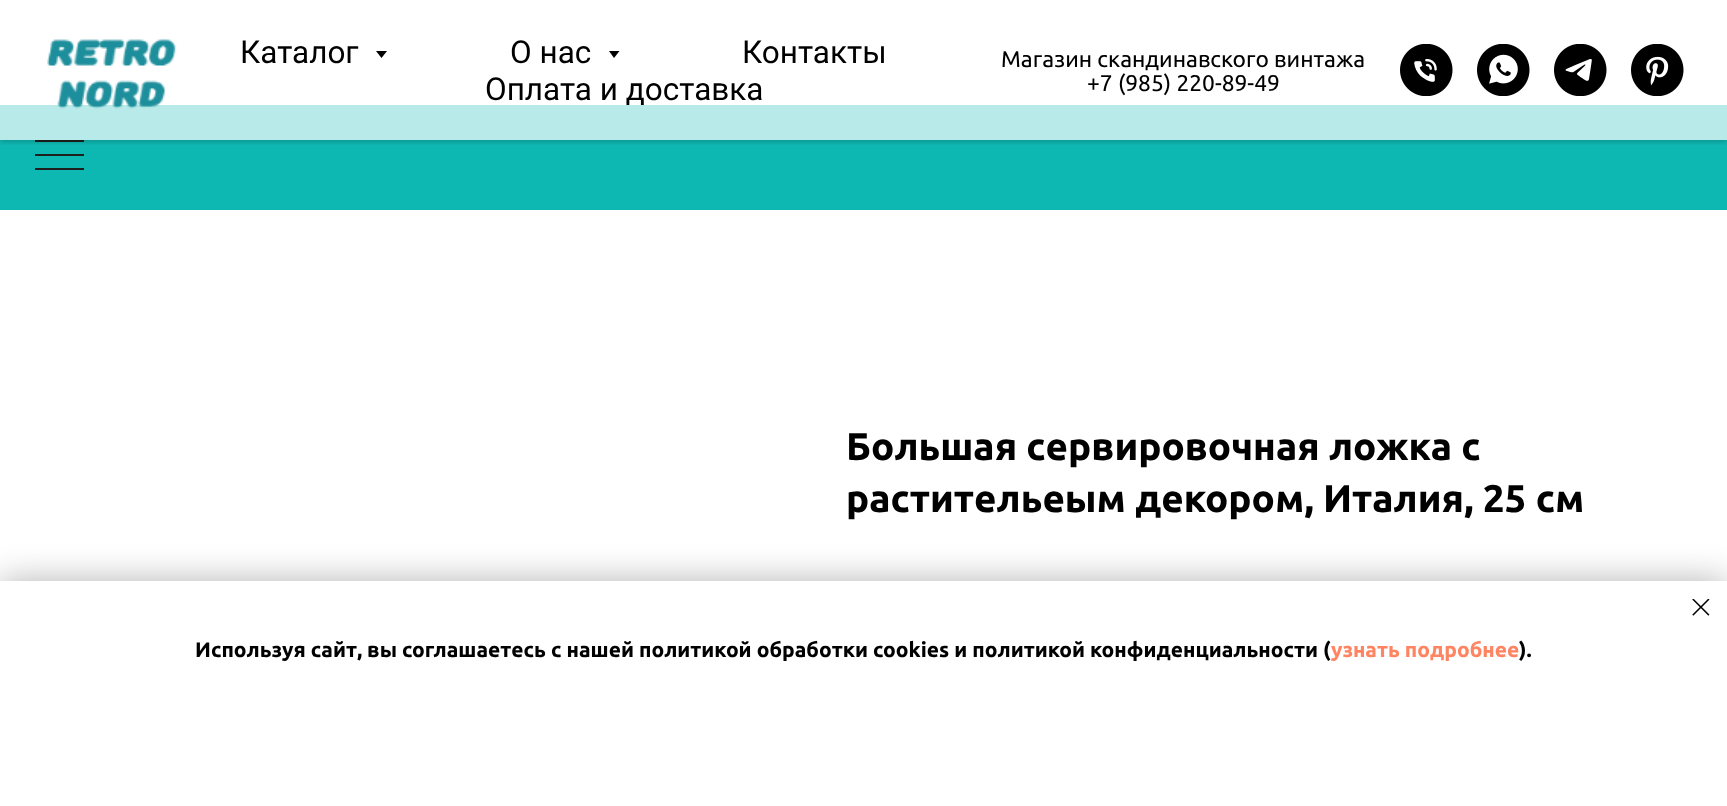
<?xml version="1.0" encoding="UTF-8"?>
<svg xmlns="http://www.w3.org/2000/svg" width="1727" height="806">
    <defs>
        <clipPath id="clip1"><rect x="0" y="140" width="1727" height="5"/></clipPath>
        <filter id="blur1" x="-50%" y="-200%" width="200%" height="500%"><feGaussianBlur stdDeviation="2.5"/></filter>
        <filter id="blur2" x="-50%" y="-200%" width="200%" height="500%"><feGaussianBlur stdDeviation="17.5"/></filter>
    </defs>
    <rect width="100%" height="100%" fill="#FFFFFF"/>
    <rect x="0" y="140" width="1727" height="70" fill="#0EB8B2"/>
    <rect x="0" y="105" width="1727" height="35" fill="#B7EAE8"/>
    <rect x="35" y="140" width="49" height="2" fill="#1D1F1F"/>
    <g clip-path="url(#clip1)">
        <rect x="0" y="2" width="1727" height="140" fill="#000000" fill-opacity="0.2" filter="url(#blur1)"/>
    </g>
    <image x="47" y="38" width="130" height="71" href="img_01.png"/>
    <text x="240" y="63" font-family="Roboto" font-size="31.5" fill="#000000">Каталог</text>
    <path d="M 376 51 H 387 L 381.5 58 Z" fill="#000000"/>
    <text x="510" y="63" font-family="Roboto" font-size="31.5" fill="#000000">О нас</text>
    <path d="M 609 51 H 619.5 L 614 58 Z" fill="#000000"/>
    <text x="742" y="63" font-family="Roboto" font-size="31.5" fill="#000000">Контакты</text>
    <text x="485" y="100" font-family="Roboto" font-size="31.5" fill="#000000">Оплата и доставка</text>
    <text x="1001" y="67" font-family="Ubuntu" font-size="22.75" fill="#000000">Магазин скандинавского винтажа</text>
    <text x="1087" y="91" font-family="Ubuntu" font-size="22.75" fill="#000000">+7 (985) 220-89-49</text>
    <image x="1400" y="44" width="53" height="52" href="img_02.png"/>
    <image x="1477" y="44" width="53" height="52" href="img_03.png"/>
    <image x="1554" y="44" width="53" height="52" href="img_04.png"/>
    <image x="1631" y="44" width="53" height="52" href="img_05.png"/>
    <rect x="35" y="154" width="49" height="2" fill="#1D1F1F"/>
    <rect x="35" y="168" width="49" height="2" fill="#1D1F1F"/>
    <text font-family="Ubuntu" font-size="38.5" font-weight="700" fill="#000000">
        <tspan x="846" y="460">Большая сервировочная ложка с</tspan>
        <tspan x="846" y="512">растительеым декором, Италия, 25 см</tspan>
    </text>
    <rect x="0" y="581" width="1727" height="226" fill="#000000" fill-opacity="0.3" filter="url(#blur2)"/>
    <rect x="0" y="581" width="1727" height="225" fill="#FFFFFF"/>
    <image x="1692" y="599" width="18" height="17" href="img_06.png"/>
    <text x="195" y="657" font-family="Ubuntu" font-size="21" font-weight="700" fill="#000000">Используя сайт, вы соглашаетесь с нашей политикой обработки cookies и политикой конфиденциальности (</text>
    <text x="1331" y="657" font-family="Ubuntu" font-size="21" font-weight="700" fill="#FF8562">узнать подробнее</text>
    <text x="1519" y="657" font-family="Ubuntu" font-size="21" font-weight="700" fill="#000000">).</text>
</svg>
